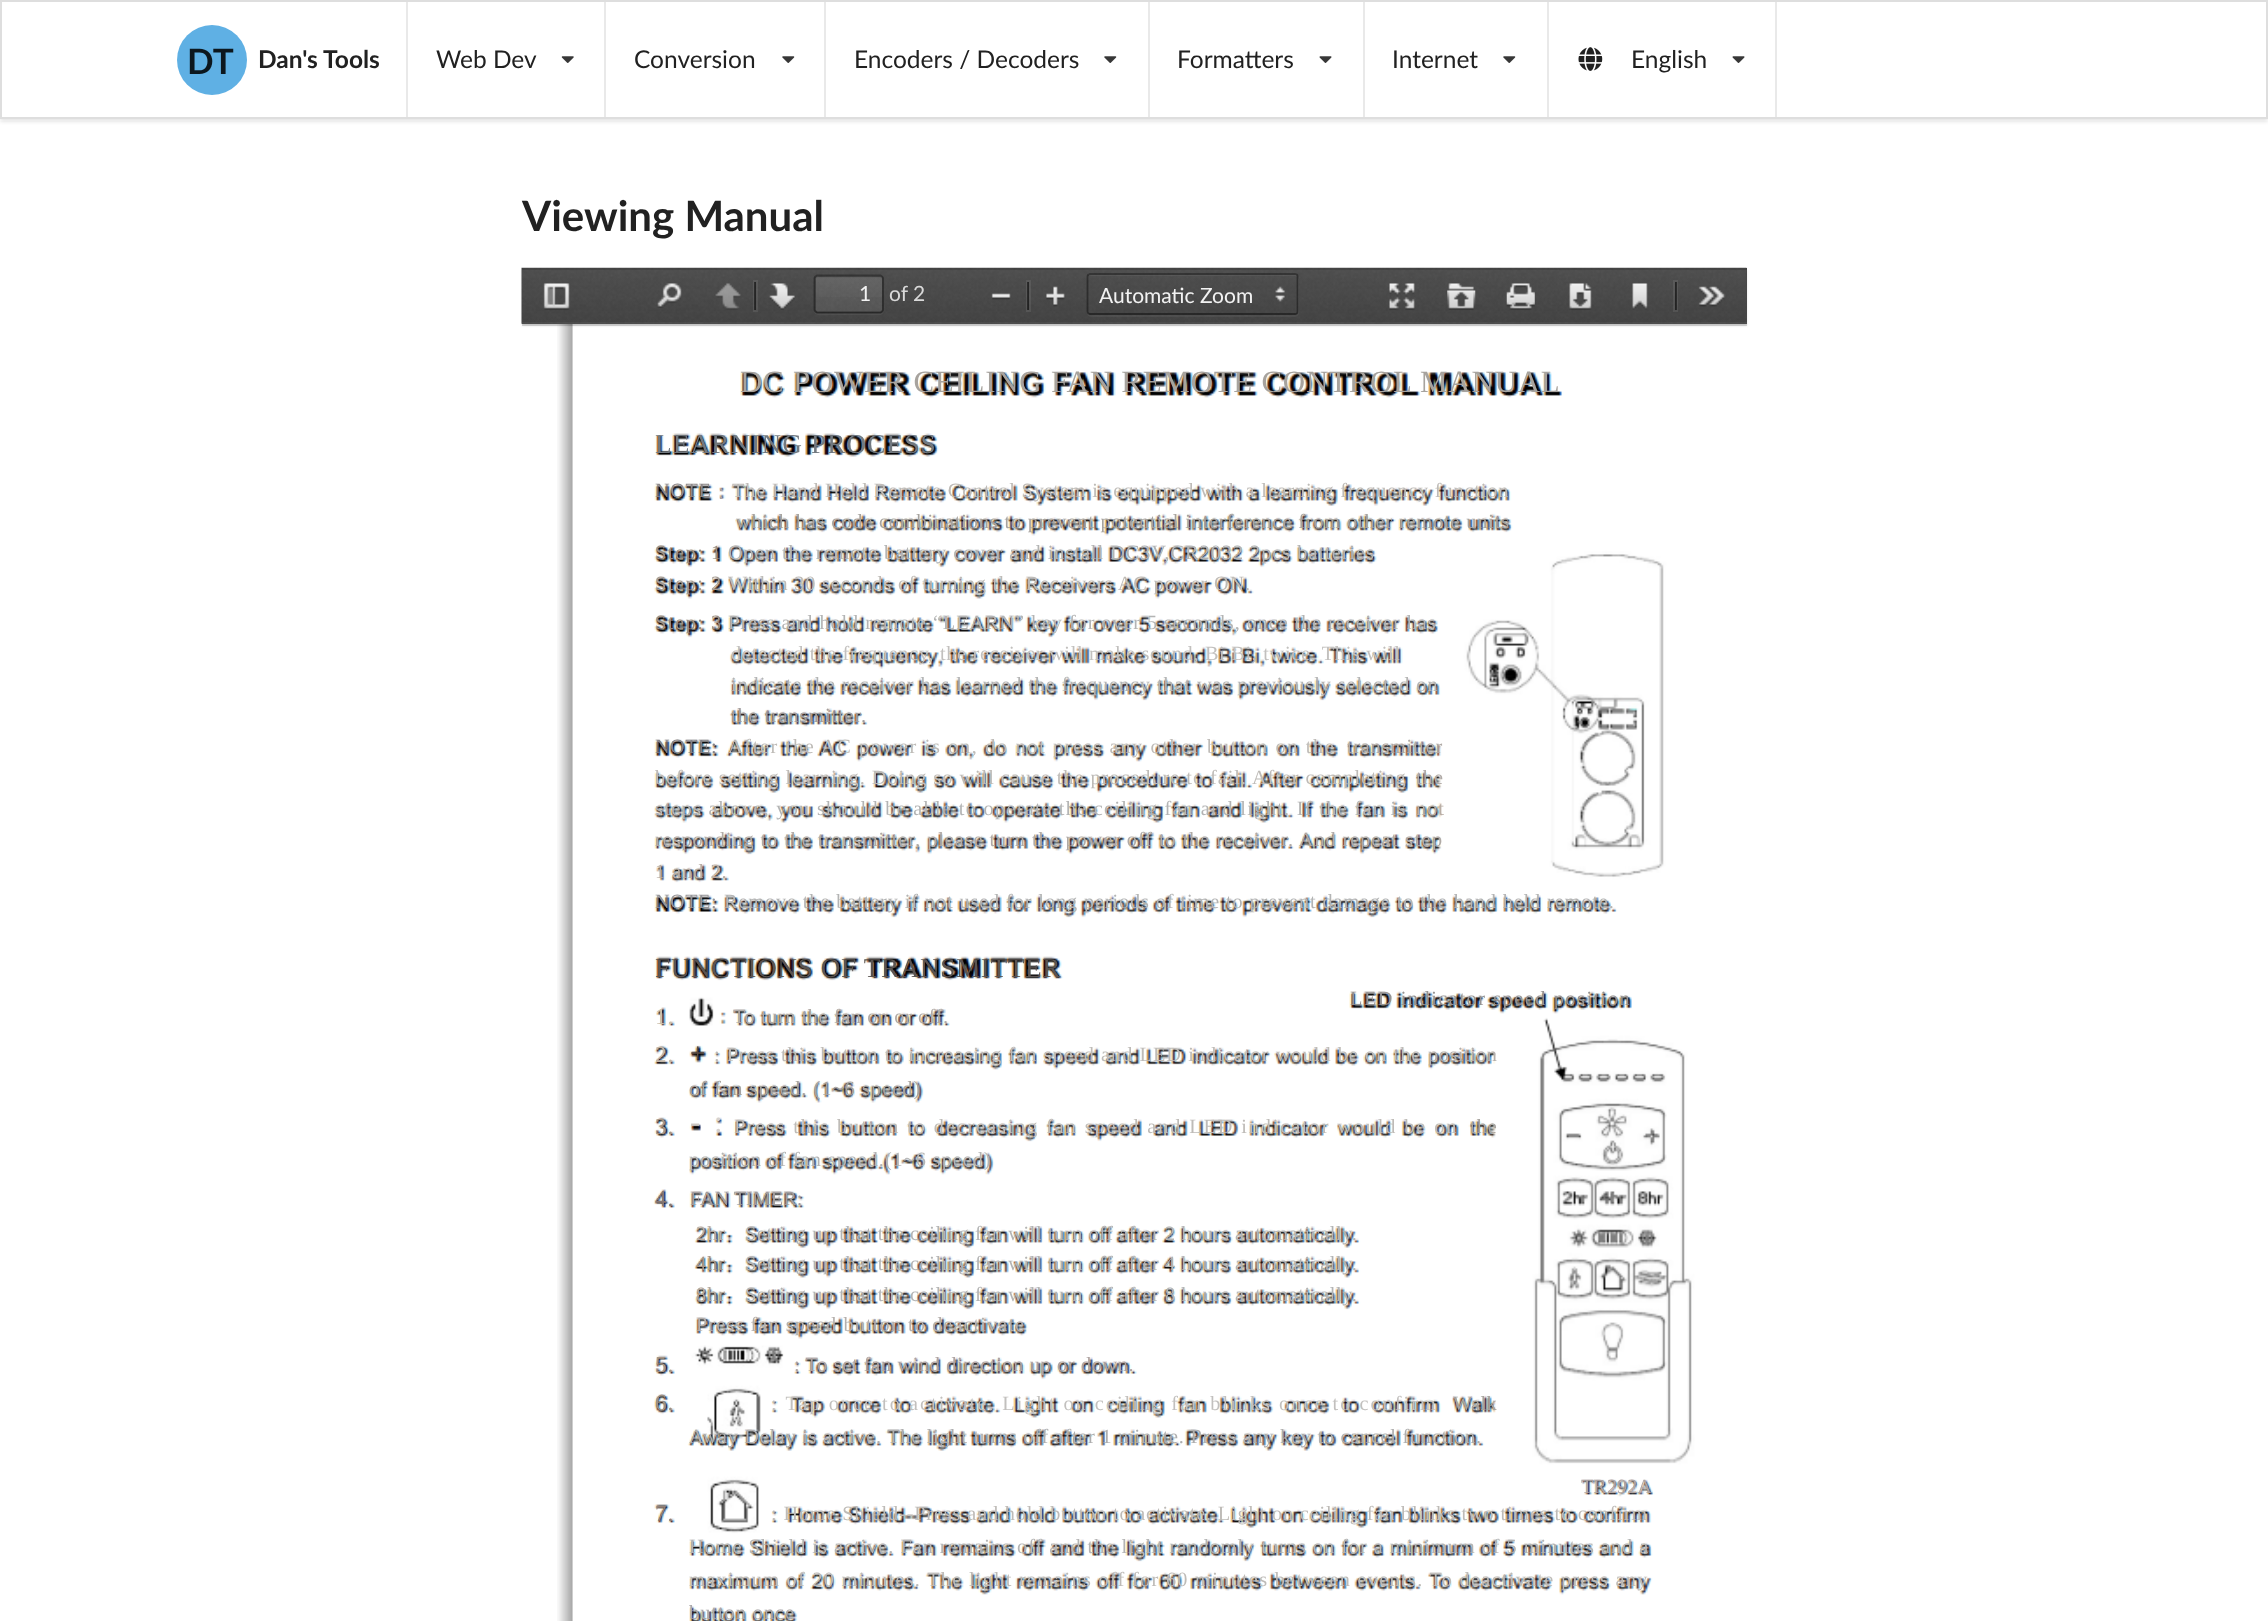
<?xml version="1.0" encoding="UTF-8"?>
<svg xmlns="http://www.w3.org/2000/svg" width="2268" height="1621">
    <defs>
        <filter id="blur1" x="-50%" y="-200%" width="200%" height="500%"><feGaussianBlur stdDeviation="2"/></filter>
        <filter id="blur2" x="-50%" y="-200%" width="200%" height="500%"><feGaussianBlur stdDeviation="1"/></filter>
        <linearGradient id="g1" gradientUnits="userSpaceOnUse" x1="849" y1="277" x2="849" y2="312"><stop offset="0" stop-color="#FFFFFF" stop-opacity="0.05"/><stop offset="1" stop-color="#FFFFFF" stop-opacity="0"/></linearGradient>
    </defs>
    <rect width="100%" height="100%" fill="#FFFFFF"/>
    <rect x="0" y="2" width="2268" height="119" fill="#222426" fill-opacity="0.15" filter="url(#blur1)"/>
    <rect x="1" y="1" width="2266" height="117" fill="#FFFFFF" stroke="#DEDEDE" stroke-width="2"/>
    <circle cx="212" cy="60" r="35" fill="#5FB0E4"/>
    <text x="187" y="74" font-family="Lato" font-size="35" font-weight="700" fill="#0C171E">DT</text>
    <text x="258" y="68" font-family="Lato" font-size="24.5" font-weight="700" fill="#212121">Dan's Tools</text>
    <rect x="406" y="2" width="2" height="115" fill="#E9E9E9"/>
    <text x="436" y="68" font-family="Lato" font-size="24.5" fill="#212121">Web Dev</text>
    <image x="561" y="56" width="13" height="7" href="img_01.png"/>
    <rect x="604" y="2" width="2" height="115" fill="#E9E9E9"/>
    <text x="634" y="68" font-family="Lato" font-size="24.5" fill="#212121">Conversion</text>
    <image x="782" y="56" width="13" height="7" href="img_02.png"/>
    <rect x="824" y="2" width="2" height="115" fill="#E9E9E9"/>
    <text x="854" y="68" font-family="Lato" font-size="24.5" fill="#212121">Encoders / Decoders</text>
    <image x="1104" y="56" width="13" height="7" href="img_02.png"/>
    <rect x="1148" y="2" width="2" height="115" fill="#E9E9E9"/>
    <text x="1177" y="68" font-family="Lato" font-size="24.5" fill="#212121">Formatters</text>
    <image x="1319" y="56" width="13" height="7" href="img_03.png"/>
    <rect x="1363" y="2" width="2" height="115" fill="#E9E9E9"/>
    <text x="1392" y="68" font-family="Lato" font-size="24.5" fill="#212121">Internet</text>
    <image x="1503" y="56" width="13" height="7" href="img_02.png"/>
    <rect x="1547" y="2" width="2" height="115" fill="#E9E9E9"/>
    <image x="1578" y="47" width="25" height="24" href="img_04.png"/>
    <text x="1631" y="68" font-family="Lato" font-size="24.5" fill="#212121">English</text>
    <image x="1732" y="56" width="13" height="7" href="img_03.png"/>
    <rect x="1775" y="2" width="2" height="115" fill="#E9E9E9"/>
    <text x="522" y="231" font-family="Lato" font-size="42" font-weight="700" fill="#212121">Viewing Manual</text>
    <image x="557" y="324" width="16" height="1297" href="img_19.png"/>
    <image x="572" y="324" width="1140" height="1297" href="img_20.png"/>
    <rect x="522" y="270" width="1225" height="56" fill="#000000" fill-opacity="0.1" filter="url(#blur2)"/>
    <path d="M 522 324 V 326 H 1747 V 270 H 1746 V 324 Z" fill="#000000" fill-opacity="0.15"/>
    <rect x="522" y="268" width="1225" height="56" fill="#474747"/>
    <image x="521" y="267" width="1226" height="57" href="img_05.png"/>
    <rect x="522" y="322" width="1225" height="2" fill="#FFFFFF" fill-opacity="0.05"/>
    <rect x="522" y="268" width="1225" height="2" fill="#000000" fill-opacity="0.15"/>
    <image x="543" y="283" width="27" height="27" href="img_06.png"/>
    <image x="657" y="283" width="25" height="25" href="img_07.png"/>
    <image x="715" y="283" width="26" height="27" href="img_08.png"/>
    <rect x="754" y="281" width="3" height="30" fill="none" stroke="#FFFFFF" stroke-opacity="0.08" stroke-width="2"/>
    <rect x="754" y="282" width="2" height="28" fill="#000000" fill-opacity="0.5"/>
    <image x="769" y="283" width="26" height="27" href="img_09.png"/>
    <path d="M 814 311 C 814 317 826 315 828 315 H 880 C 886 315 884 304 884 301 V 280 V 310 C 884 312 882 313 880 313 H 817 C 816 313 815 312 814 311 Z" fill="#FFFFFF" fill-opacity="0.05"/>
    <rect x="816" y="277" width="66" height="35" rx="2" fill="#FFFFFF" fill-opacity="0.09"/>
    <rect x="816" y="277" width="66" height="20" fill="url(#g1)"/>
    <path d="M 817 278 H 881 L 882 280 C 882 274 873 277 870 277 H 828 C 825 277 816 274 816 280 C 816 279 816 278 817 278 Z" fill="#000000" fill-opacity="0.05"/>
    <path d="M 815.5 276.5 L 817 275.5 H 880.5 L 882 276.5" fill="none" stroke="#000000" stroke-opacity="0.32" stroke-width="1.8"/>
    <path d="M 882 276.5 C 882.5 277 883 277.5 883 278 V 310 C 883 310.5 882.5 311 882 311.5" fill="none" stroke="#000000" stroke-opacity="0.38" stroke-width="1.8"/>
    <path d="M 882 311.5 L 880.5 312.5 H 817 L 815.5 311.5" fill="none" stroke="#000000" stroke-opacity="0.42" stroke-width="1.8"/>
    <path d="M 815.5 311.5 C 815 311 814.5 310.5 814.5 310 V 278 C 814.5 277.5 815 277 815.5 276.5" fill="none" stroke="#000000" stroke-opacity="0.38" stroke-width="1.8"/>
    <text x="859" y="301" font-family="Lato" font-size="21" fill="#F2F2F2">1</text>
    <text x="889" y="301" font-family="Lato" font-size="21" fill="#D9D9D9">of 2</text>
    <image x="991" y="293" width="20" height="7" href="img_10.png"/>
    <rect x="1027" y="281" width="3" height="30" fill="none" stroke="#FFFFFF" stroke-opacity="0.08" stroke-width="2"/>
    <rect x="1027" y="282" width="2" height="28" fill="#000000" fill-opacity="0.5"/>
    <image x="1046" y="286" width="19" height="21" href="img_11.png"/>
    <path d="M 1087 313 C 1087 315 1089 317 1091 317 H 1295 C 1297 317 1299 315 1299 313 V 279 L 1298 277 V 312 C 1298 313 1297 315 1295 315 H 1090 C 1089 315 1088 314 1087 313 Z" fill="#FFFFFF" fill-opacity="0.05"/>
    <image x="1275" y="286" width="10" height="16" href="img_12.png"/>
    <path d="M 1090 276 H 1295 L 1297 277 V 278 C 1297 277 1297 275 1295 275 H 1091 L 1089 276 Z" fill="#FFFFFF" fill-opacity="0.05"/>
    <path d="M 1088.5 274.5 L 1090 274 H 1295 L 1297 274.5" fill="none" stroke="#000000" stroke-opacity="0.32" stroke-width="1.8"/>
    <path d="M 1297 274.5 C 1297.5 275 1297.5 276 1297.5 276.5 V 311.5 C 1297.5 312 1297.5 313 1297 313.5" fill="none" stroke="#000000" stroke-opacity="0.38" stroke-width="1.8"/>
    <path d="M 1297 313.5 L 1295 314 H 1090 L 1088.5 313.5" fill="none" stroke="#000000" stroke-opacity="0.42" stroke-width="1.8"/>
    <path d="M 1088.5 313.5 C 1088 313 1087.5 312 1087.5 311.5 V 276.5 C 1087.5 276 1088 275 1088.5 274.5" fill="none" stroke="#000000" stroke-opacity="0.38" stroke-width="1.8"/>
    <text x="1099" y="303" font-family="Lato" font-size="21" fill="#F2F2F2">Automatic Zoom</text>
    <image x="1389" y="283" width="26" height="27" href="img_13.png"/>
    <image x="1447" y="283" width="29" height="27" href="img_14.png"/>
    <image x="1506" y="283" width="29" height="27" href="img_15.png"/>
    <image x="1569" y="283" width="23" height="27" href="img_16.png"/>
    <image x="1632" y="283" width="16" height="27" href="img_17.png"/>
    <rect x="1674" y="281" width="3" height="30" fill="none" stroke="#FFFFFF" stroke-opacity="0.08" stroke-width="2"/>
    <rect x="1675" y="282" width="2" height="28" fill="#000000" fill-opacity="0.5"/>
    <image x="1698" y="286" width="28" height="21" href="img_18.png"/>
    <text x="740" y="392" font-family="Liberation Serif" font-size="30.95" letter-spacing="0.75" fill="#A7A39E">DC POWER CEILING FAN REMOTE CONTROL MANUAL</text>
    <text x="655" y="453" font-family="Liberation Serif" font-size="27.25" letter-spacing="1.1" fill="#727980">LEARNING PROCESS</text>
    <text x="655" y="497" font-family="Liberation Serif" font-size="20.25" letter-spacing="0.6" fill="#8E898A">NOTE</text>
    <text x="711" y="499" font-family="WenQuanYi Zen Hei" font-size="20.25" font-weight="500" fill="#AEA3A2">：</text>
    <text x="732" y="497" font-family="Liberation Serif" font-size="20.25" letter-spacing="0.85" fill="#BEBBB7">The Hand Held Remote Control System is equipped with a learning frequency function</text>
    <text x="736" y="528" font-family="Liberation Serif" font-size="20.25" letter-spacing="0.87" fill="#A7A39E">which has code combinations to prevent potential interference from other remote units</text>
    <text x="655" y="559" font-family="Liberation Serif" font-size="20.25" letter-spacing="1.55" fill="#9C8F83">Step: 1</text>
    <text x="728" y="559" font-family="Liberation Serif" font-size="20.25" letter-spacing="1" fill="#B3B4B4">Open the remote battery cover and install DC3V,CR2032 2pcs batteries</text>
    <text x="655" y="590" font-family="Liberation Serif" font-size="20.25" letter-spacing="1.55" fill="#A49B93">Step: 2</text>
    <text x="728" y="590" font-family="Liberation Serif" font-size="20.25" letter-spacing="0.83" fill="#BEBBB7">Within 30 seconds of turning the Receivers AC power ON.</text>
    <text x="655" y="629" font-family="Liberation Serif" font-size="20.25" letter-spacing="1.55" fill="#9C8F83">Step: 3</text>
    <text x="728" y="629" font-family="Liberation Serif" font-size="20.25" letter-spacing="0.93" fill="#B3B4B4">Press and hold remote “LEARN” key for over 5 seconds, once the receiver has</text>
    <text x="731" y="660" font-family="Liberation Serif" font-size="20.25" letter-spacing="0.7" fill="#C2C0BE">detected the frequency, the receiver will make sound, Bi Bi, twice. This will</text>
    <text x="731" y="691" font-family="Liberation Serif" font-size="20.25" letter-spacing="0.92" fill="#B3B4B4">indicate the receiver has learned the frequency that was previously selected on</text>
    <text x="731" y="722" font-family="Liberation Serif" font-size="20.25" letter-spacing="0.9" fill="#A29D9D">the transmitter.</text>
    <text x="655" y="753" font-family="Liberation Serif" font-size="20.25" letter-spacing="0.5" fill="#838287">NOTE:</text>
    <text x="728" y="753" font-family="Liberation Serif" font-size="20.25" letter-spacing="1.65" fill="#BEBBB7">After the AC power is on, do not press any other button on the</text>
    <text x="1347" y="753" font-family="Liberation Serif" font-size="20.25" letter-spacing="0.75" fill="#B0AAA6">transmitter</text>
    <text x="655" y="784" font-family="Liberation Serif" font-size="20.25" letter-spacing="0.98" fill="#BEBBB7">before setting learning. Doing so will cause the procedure to fail. After completing</text>
    <text x="1416" y="784" font-family="Liberation Serif" font-size="20.25" letter-spacing="1.1" fill="#B0AAA6">the</text>
    <text x="655" y="815" font-family="Liberation Serif" font-size="20.25" letter-spacing="1.32" fill="#B3B4B4">steps above, you should be able to operate the ceiling fan and light. If the fan is</text>
    <text x="1416" y="815" font-family="Liberation Serif" font-size="20.25" letter-spacing="1" fill="#B9AEA5">not</text>
    <text x="655" y="846" font-family="Liberation Serif" font-size="20.25" letter-spacing="0.95" fill="#B0AAA6">responding to the transmitter, please turn the power off to the receiver. And repeat</text>
    <text x="1405" y="846" font-family="Liberation Serif" font-size="20.25" letter-spacing="1.5" fill="#B0AAA6">step</text>
    <text x="655" y="878" font-family="Liberation Serif" font-size="20.25" letter-spacing="1" fill="#B9AEA5">1 and 2.</text>
    <text x="655" y="908" font-family="Liberation Serif" font-size="20.25" letter-spacing="0.5" fill="#959599">NOTE:</text>
    <text x="724" y="908" font-family="Liberation Serif" font-size="20.25" letter-spacing="0.9" fill="#B3B4B4">Remove the battery if not used for long periods of time to prevent damage to the hand held remote.</text>
    <text x="655" y="977" font-family="Liberation Serif" font-size="27.25" letter-spacing="0.6" fill="#5B5451">FUNCTIONS OF TRANSMITTER</text>
    <text x="1350" y="1005" font-family="Liberation Serif" font-size="20.25" letter-spacing="1.55" fill="#969392">LED indicator speed position</text>
    <text x="655" y="1024" font-family="Liberation Serif" font-size="23" letter-spacing="1" fill="#CCBFAB">1.</text>
    <text x="733" y="1023" font-family="Liberation Serif" font-size="20.25" letter-spacing="0.6" fill="#B0AAA6">To turn the fan on or off.</text>
    <text x="655" y="1062" font-family="Liberation Serif" font-size="23" letter-spacing="1" fill="#C4B6A7">2.</text>
    <text x="690" y="1062" font-family="Liberation Serif" font-size="27.25" fill="#584941">+</text>
    <text x="714" y="1061" font-family="Liberation Serif" font-size="20.25" letter-spacing="1.05" fill="#BEBBB7">: Press this button to increasing fan speed and LED indicator would be on the</text>
    <text x="1428" y="1061" font-family="Liberation Serif" font-size="20.25" letter-spacing="0.5" fill="#B4AFAC">position</text>
    <text x="689" y="1095" font-family="Liberation Serif" font-size="20.25" letter-spacing="1.1" fill="#A7A39E">of fan speed. (1~6 speed)</text>
    <text x="655" y="1134" font-family="Liberation Serif" font-size="23" letter-spacing="1" fill="#A89686">3.</text>
    <text x="690" y="1132" font-family="Liberation Serif" font-size="30.95" fill="#CCC7C3">-</text>
    <text x="714" y="1132" font-family="Liberation Serif" font-size="30.95" fill="#D7D2CF">:</text>
    <text x="734" y="1133" font-family="Liberation Serif" font-size="20.25" letter-spacing="1.9" fill="#BEBBB7">Press this button to decreasing fan speed and LED indicator would be on</text>
    <text x="1470" y="1133" font-family="Liberation Serif" font-size="20.25" letter-spacing="1.05" fill="#A7A39E">the</text>
    <text x="689" y="1166" font-family="Liberation Serif" font-size="20.25" letter-spacing="0.98" fill="#B3B4B4">position of fan speed.(1~6 speed)</text>
    <text x="655" y="1206" font-family="Liberation Serif" font-size="23" letter-spacing="1" fill="#857774">4.</text>
    <text x="690" y="1205" font-family="Liberation Serif" font-size="20.25" fill="#A29D9D">FAN TIMER:</text>
    <text x="696" y="1240" font-family="Liberation Serif" font-size="20.25" letter-spacing="1" fill="#B9AEA5">2hr</text>
    <text x="745" y="1240" font-family="Liberation Serif" font-size="20.25" letter-spacing="0.6" fill="#B3B4B4">Setting up that the ceiling fan will turn off after 2 hours automatically.</text>
    <text x="696" y="1270" font-family="Liberation Serif" font-size="20.25" letter-spacing="1" fill="#A89686">4hr</text>
    <text x="745" y="1270" font-family="Liberation Serif" font-size="20.25" letter-spacing="0.6" fill="#B3B4B4">Setting up that the ceiling fan will turn off after 4 hours automatically.</text>
    <text x="696" y="1301" font-family="Liberation Serif" font-size="20.25" letter-spacing="1" fill="#B2A69A">8hr</text>
    <text x="745" y="1301" font-family="Liberation Serif" font-size="20.25" letter-spacing="0.6" fill="#B3B4B4">Setting up that the ceiling fan will turn off after 8 hours automatically.</text>
    <text x="696" y="1331" font-family="Liberation Serif" font-size="20.25" letter-spacing="1.1" fill="#B4AFAC">Press fan speed button to deactivate</text>
    <text x="655" y="1372" font-family="Liberation Serif" font-size="23" letter-spacing="1" fill="#A89686">5.</text>
    <text x="794" y="1371" font-family="Liberation Serif" font-size="20.25" letter-spacing="0.65" fill="#AEA3A2">: To set fan wind direction up or down.</text>
    <text x="655" y="1410" font-family="Liberation Serif" font-size="23" letter-spacing="1" fill="#9C8F83">6.</text>
    <text x="771" y="1410" font-family="Liberation Serif" font-size="20.25" letter-spacing="2.03" fill="#C2C0BE">: Tap once to activate. Light on ceiling fan blinks once to confirm</text>
    <text x="1453" y="1410" font-family="Liberation Serif" font-size="20.25" letter-spacing="0.5" fill="#A7A39E">Walk</text>
    <text x="689" y="1443" font-family="Liberation Serif" font-size="20.25" letter-spacing="0.75" fill="#AEAEAE">Away Delay is active. The light turns off after 1 minute. Press any key to cancel function.</text>
    <text x="1581" y="1493" font-family="Liberation Serif" font-size="20.25" fill="#AEA3A2">TR292A</text>
    <text x="655" y="1521" font-family="Liberation Serif" font-size="23" letter-spacing="1" fill="#918078">7.</text>
    <text x="771" y="1520" font-family="Liberation Serif" font-size="20.25" letter-spacing="0.85" fill="#BEBBB7">: Home Shield--Press and hold button to activate. Light on ceiling fan blinks two times to confirm</text>
    <text x="689" y="1553" font-family="Liberation Serif" font-size="20.25" letter-spacing="1" fill="#B3B4B4">Home Shield is active. Fan remains off and the light randomly turns on for a minimum of 5 minutes and a</text>
    <text x="689" y="1586" font-family="Liberation Serif" font-size="20.25" letter-spacing="1.3" fill="#BEBBB7">maximum of 20 minutes. The light remains off for 60 minutes between events. To deactivate press any</text>
    <text x="689" y="1619" font-family="Liberation Serif" font-size="20.25" letter-spacing="1" fill="#AAA8AA">button once</text>
</svg>
